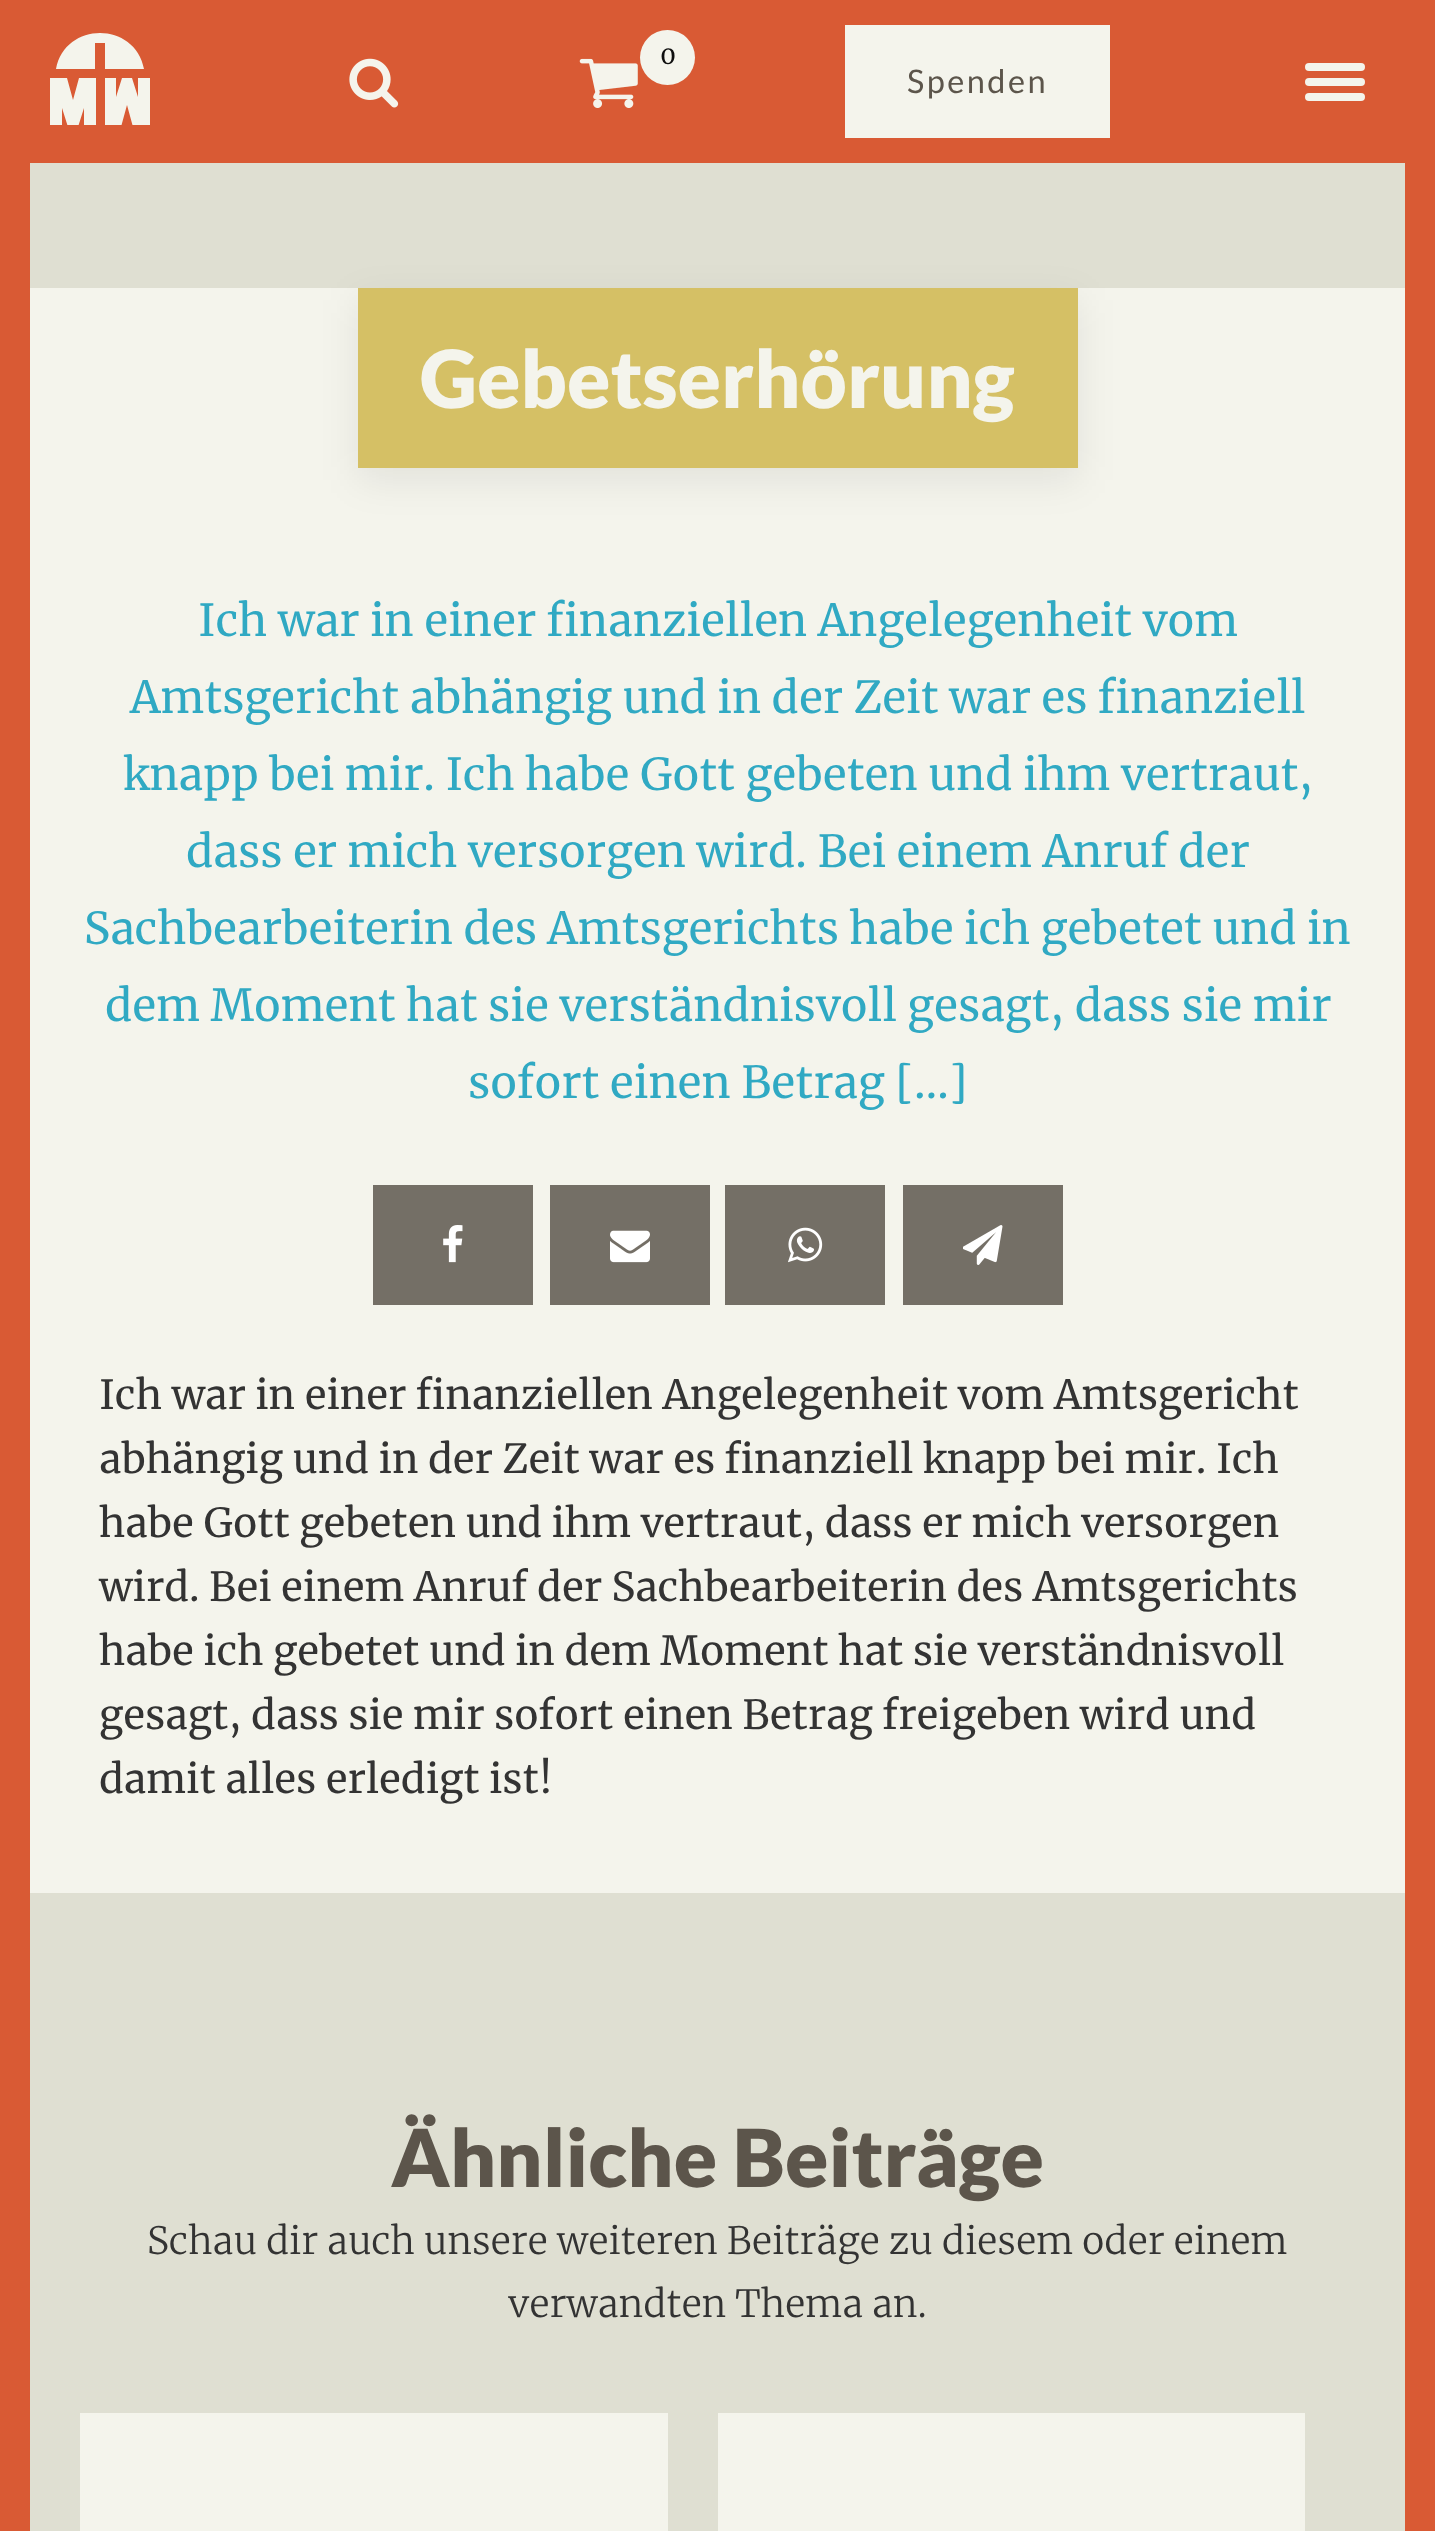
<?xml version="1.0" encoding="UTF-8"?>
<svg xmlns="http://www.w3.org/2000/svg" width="1435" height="2531">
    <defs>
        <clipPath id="clip1"><rect x="50" y="33" width="100" height="92"/></clipPath>
        <filter id="blur1" x="-50%" y="-200%" width="200%" height="500%"><feGaussianBlur stdDeviation="19"/></filter>
    </defs>
    <rect width="100%" height="100%" fill="#DFDFD2"/>
    <rect x="0" y="0" width="1435" height="163" fill="#D95A34"/>
    <g clip-path="url(#clip1)">
        <path d="M 50 127 V 78 H 67 L 73 100 L 79 78 H 96 V 127 H 84 V 108 L 78 127 H 68 L 62 108 V 127 Z" fill="#F4F4EC"/>
    </g>
    <path d="M 56 69 C 65 21 135 21 144 69 H 105 V 43 H 95 V 69 Z" fill="#F4F4EC"/>
    <g clip-path="url(#clip1)">
        <path d="M 150 78 V 127 H 133 L 127 105 L 121 127 H 105 V 78 H 116 V 97 L 122 78 H 132 L 138 97 V 78 Z" fill="#F4F4EC"/>
    </g>
    <image x="349" y="58" width="50" height="50" href="img_01.png"/>
    <image x="579" y="58" width="59" height="50" href="img_02.png"/>
    <circle cx="667.5" cy="57.5" r="27.5" fill="#F4F4EC"/>
    <text x="660" y="64" font-family="Merriweather" font-size="25" fill="#0F0F0F">0</text>
    <rect x="845" y="25" width="265" height="113" fill="#F4F4EC"/>
    <text x="907" y="93" font-family="Lato" font-size="32.5" letter-spacing="2.5" fill="#5C554B">Spenden</text>
    <rect x="1305" y="63" width="60" height="8" rx="4" fill="#F4F4EC"/>
    <rect x="1305" y="78" width="60" height="8" rx="4" fill="#F4F4EC"/>
    <rect x="1305" y="93" width="60" height="8" rx="4" fill="#F4F4EC"/>
    <rect x="1405" y="163" width="30" height="2368" fill="#D95A34"/>
    <rect x="0" y="163" width="30" height="2368" fill="#D95A34"/>
    <rect x="30" y="288" width="1375" height="1605" fill="#F4F4EC"/>
    <rect x="358" y="300" width="720" height="180" fill="#000000" fill-opacity="0.08" filter="url(#blur1)"/>
    <rect x="358" y="288" width="720" height="180" fill="#D5C065"/>
    <text x="420" y="408" font-family="Lato" font-size="80" font-weight="900" fill="#F4F4EC">Gebetserhörung</text>
    <text x="198" y="636" font-family="Merriweather" font-size="44" fill="#30A9C3">Ich war in einer finanziellen Angelegenheit vom</text>
    <text x="130" y="713" font-family="Merriweather" font-size="44" fill="#30A9C3">Amtsgericht abhängig und in der Zeit war es finanziell</text>
    <text x="123" y="790" font-family="Merriweather" font-size="44" fill="#30A9C3">knapp bei mir. Ich habe Gott gebeten und ihm vertraut,</text>
    <text x="186" y="867" font-family="Merriweather" font-size="44" fill="#30A9C3">dass er mich versorgen wird. Bei einem Anruf der</text>
    <text x="84" y="944" font-family="Merriweather" font-size="44" fill="#30A9C3">Sachbearbeiterin des Amtsgerichts habe ich gebetet und in</text>
    <text x="105" y="1021" font-family="Merriweather" font-size="44" fill="#30A9C3">dem Moment hat sie verständnisvoll gesagt, dass sie mir</text>
    <text x="468" y="1098" font-family="Merriweather" font-size="44" fill="#30A9C3">sofort einen Betrag […]</text>
    <rect x="373" y="1185" width="160" height="120" fill="#746F66"/>
    <image x="443" y="1225" width="20" height="38" href="img_03.png"/>
    <rect x="550" y="1185" width="160" height="120" fill="#746F66"/>
    <image x="610" y="1230" width="40" height="33" href="img_04.png"/>
    <rect x="725" y="1185" width="160" height="120" fill="#746F66"/>
    <image x="788" y="1227" width="35" height="36" href="img_05.png"/>
    <rect x="903" y="1185" width="160" height="120" fill="#746F66"/>
    <image x="963" y="1225" width="40" height="40" href="img_06.png"/>
    <text font-family="Merriweather" font-size="40" fill="#333333">
        <tspan x="99" y="1409">Ich war in einer finanziellen Angelegenheit vom Amtsgericht</tspan>
        <tspan x="99" y="1473">abhängig und in der Zeit war es finanziell knapp bei mir. Ich</tspan>
        <tspan x="99" y="1537">habe Gott gebeten und ihm vertraut, dass er mich versorgen</tspan>
        <tspan x="99" y="1601">wird. Bei einem Anruf der Sachbearbeiterin des Amtsgerichts</tspan>
        <tspan x="99" y="1665">habe ich gebetet und in dem Moment hat sie verständnisvoll</tspan>
        <tspan x="99" y="1729">gesagt, dass sie mir sofort einen Betrag freigeben wird und</tspan>
        <tspan x="99" y="1793">damit alles erledigt ist!</tspan>
    </text>
    <text x="391" y="2187" font-family="Lato" font-size="80" font-weight="900" fill="#5C554B">Ähnliche Beiträge</text>
    <text x="147" y="2254" font-family="Merriweather" font-size="37.5" font-weight="300" fill="#333333">Schau dir auch unsere weiteren Beiträge zu diesem oder einem</text>
    <text x="508" y="2317" font-family="Merriweather" font-size="37.5" font-weight="300" fill="#333333">verwandten Thema an.</text>
    <rect x="80" y="2413" width="588" height="118" fill="#F4F4EC"/>
    <rect x="718" y="2413" width="587" height="118" fill="#F4F4EC"/>
</svg>
